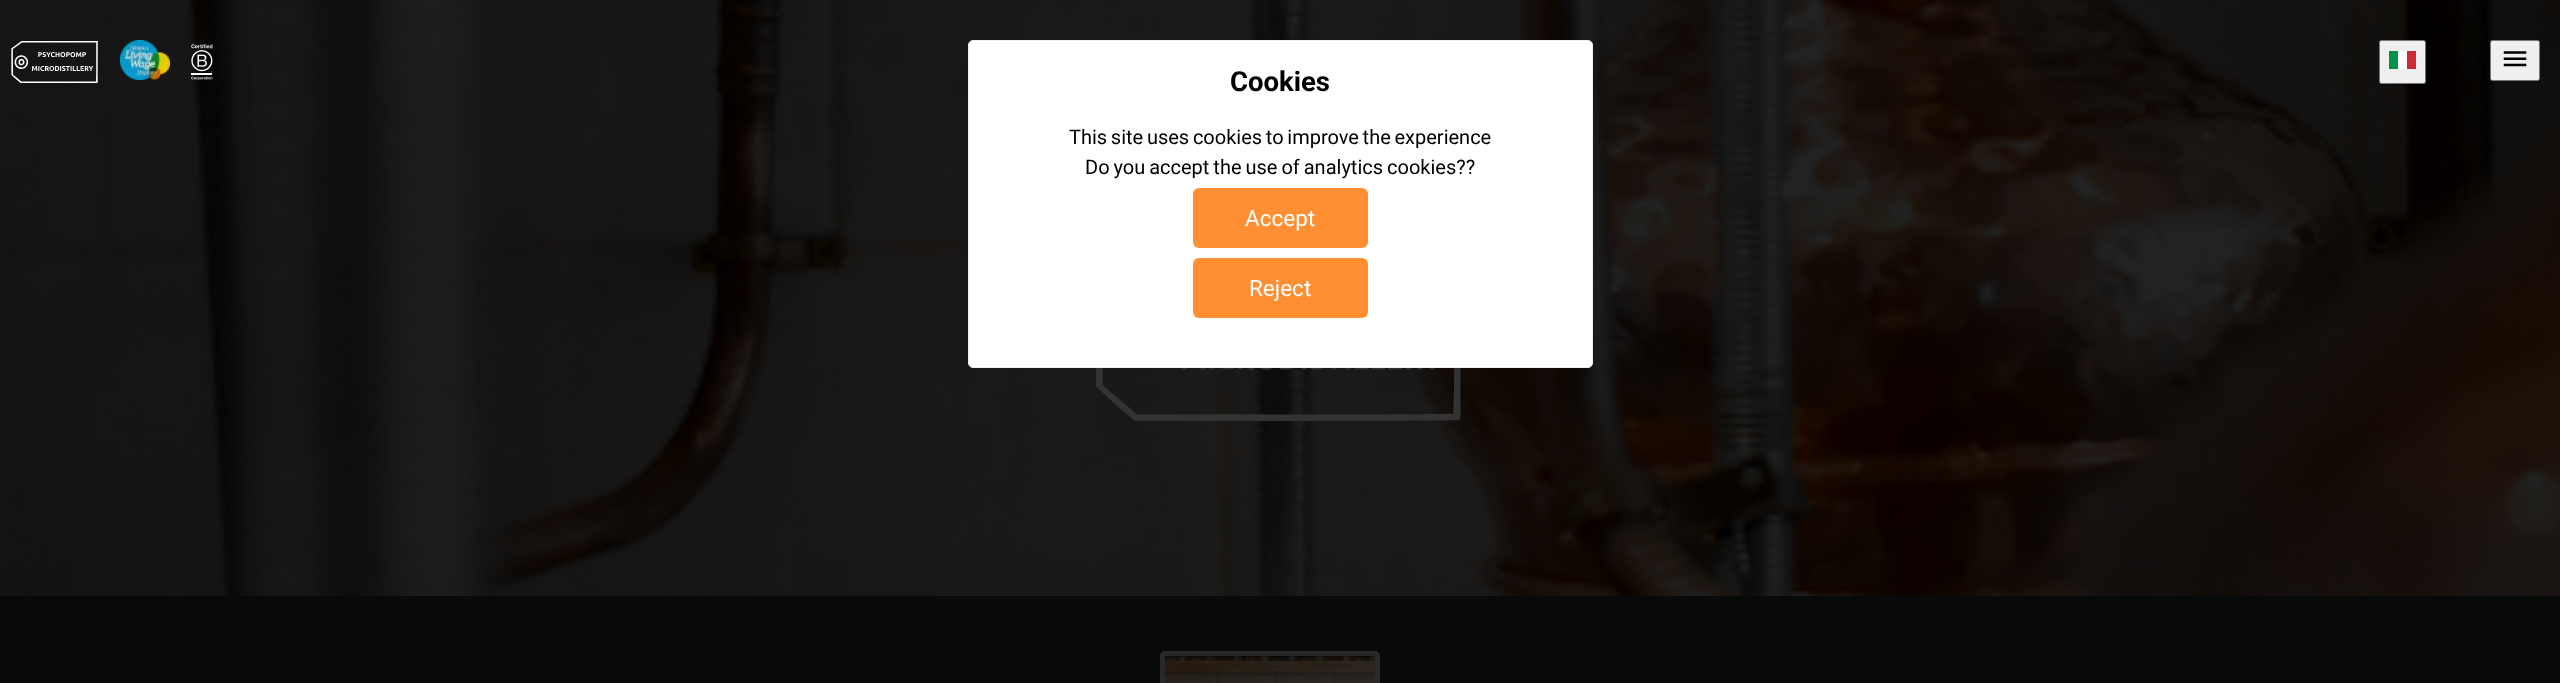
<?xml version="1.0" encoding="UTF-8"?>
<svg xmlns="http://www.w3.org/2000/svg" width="2560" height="683">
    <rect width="100%" height="100%" fill="#FFFFFF"/>
    <image x="0" y="0" width="2560" height="596" href="img_01.png"/>
    <image x="11" y="41" width="87" height="42" href="img_02.png"/>
    <image x="120" y="40" width="50" height="40" href="img_03.png"/>
    <image x="191" y="44" width="22" height="36" href="img_04.png"/>
    <rect x="2379.5" y="40.5" width="46" height="43" rx="2" fill="#EFEFEF" stroke="#767676"/>
    <rect x="2389" y="51" width="9" height="18" fill="#009246"/>
    <rect x="2398" y="51" width="9" height="18" fill="#FFFFFF"/>
    <rect x="2407" y="51" width="9" height="18" fill="#CE2B37"/>
    <rect x="2490.5" y="40.5" width="49" height="40" rx="2" fill="#EFEFEF" stroke="#767676"/>
    <image x="2503" y="51" width="24" height="16" href="img_05.png"/>
    <rect x="968.5" y="40.5" width="624" height="327" rx="4.5" fill="#FFFFFF" stroke="#EEEEEE"/>
    <text x="1230" y="91" font-family="Roboto" font-size="27.5" font-weight="700" fill="#000000">Cookies</text>
    <text x="1069" y="144" word-spacing="-1.25" font-family="Roboto" font-size="20" fill="#000000">This site uses cookies to improve the experience</text>
    <text x="1085" y="174" word-spacing="-1" font-family="Roboto" font-size="20" fill="#000000">Do you accept the use of analytics cookies??</text>
    <rect x="1193" y="188" width="175" height="60" rx="6" fill="#FF8F33"/>
    <text x="1245" y="226" font-family="Roboto" font-size="22.5" fill="#FFFFFF">Accept</text>
    <rect x="1193" y="258" width="175" height="60" rx="6" fill="#FF8F33"/>
    <text x="1249" y="296" font-family="Roboto" font-size="22.5" fill="#FFFFFF">Reject</text>
    <image x="1096" y="368" width="365" height="53" href="img_06.png"/>
    <rect x="0" y="596" width="2560" height="87" fill="#080A09"/>
    <rect x="1162.5" y="653.5" width="215" height="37" rx="2.5" fill="none" stroke="#292929" stroke-width="5"/>
    <image x="1165" y="656" width="210" height="27" href="img_07.png"/>
</svg>
